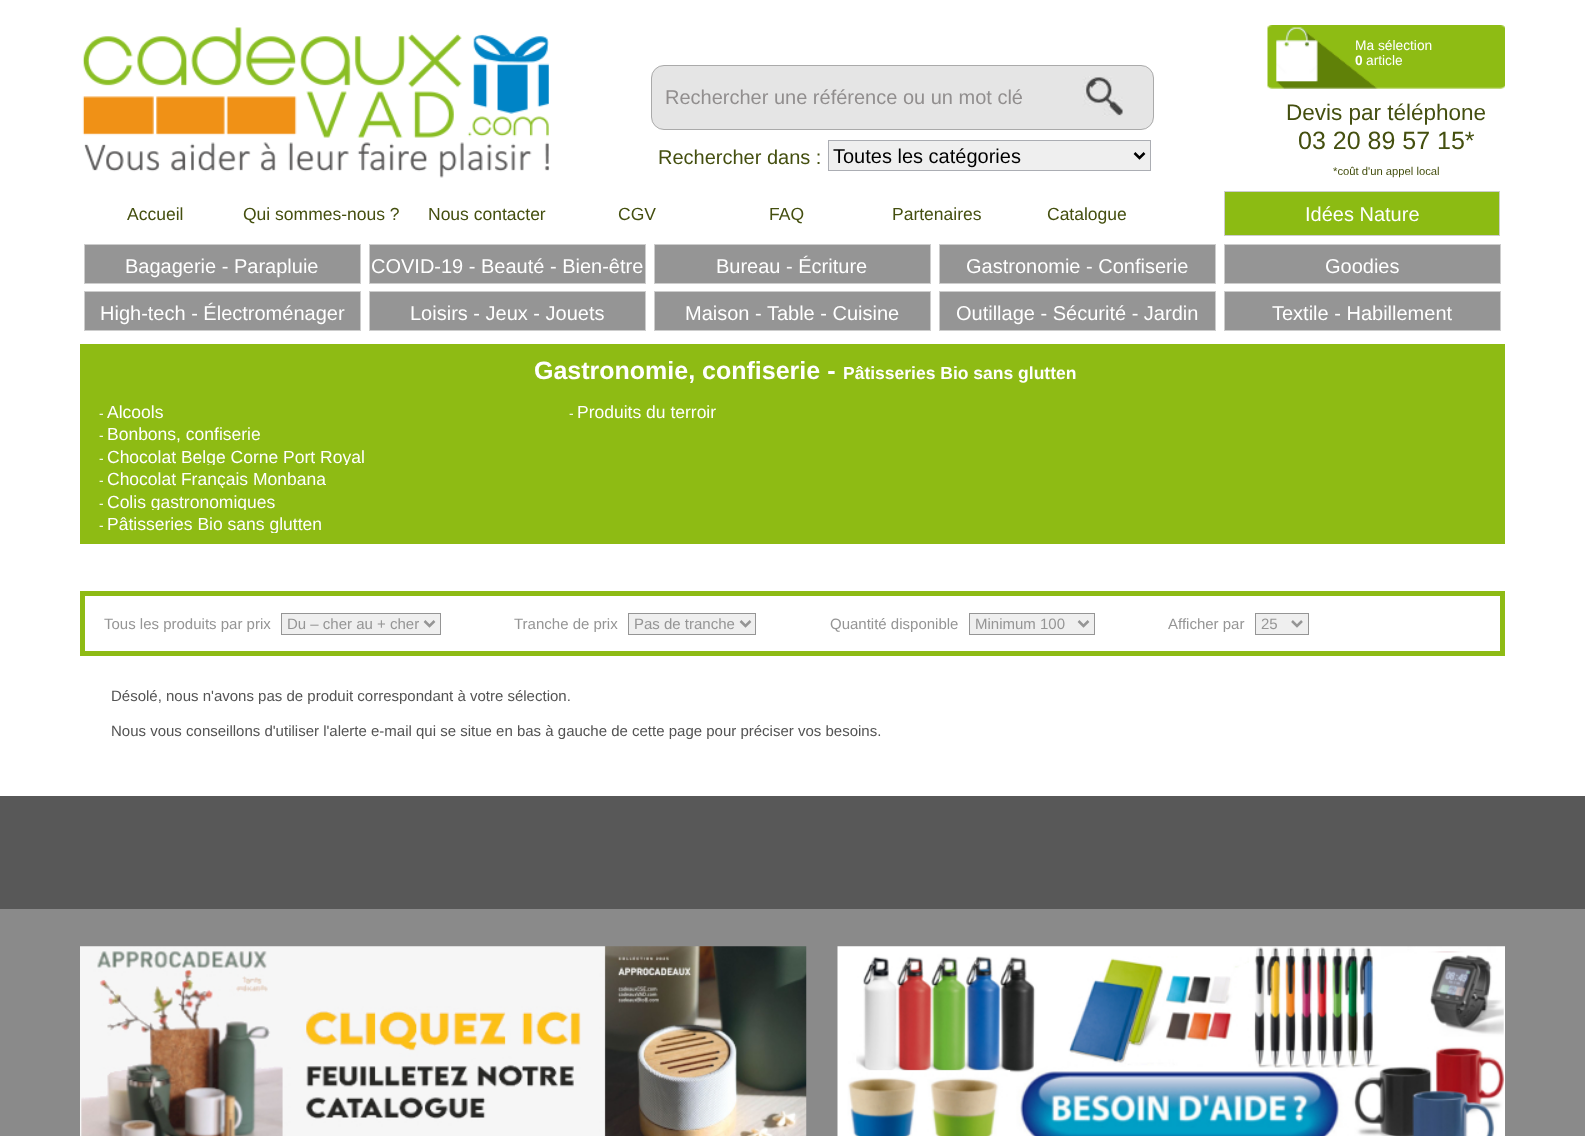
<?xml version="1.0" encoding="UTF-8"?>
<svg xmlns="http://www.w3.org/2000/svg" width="1585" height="1136">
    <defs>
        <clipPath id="clip1"><rect x="93" y="443" width="470" height="22"/></clipPath>
        <clipPath id="clip2"><rect x="93" y="465" width="470" height="23"/></clipPath>
        <clipPath id="clip3"><rect x="93" y="488" width="470" height="22"/></clipPath>
        <clipPath id="clip4"><rect x="93" y="510" width="470" height="23"/></clipPath>
    </defs>
    <rect width="100%" height="100%" fill="#FFFFFF"/>
    <image x="82" y="27" width="468" height="151" href="img_01.png"/>
    <rect x="651.5" y="65.5" width="502" height="64" rx="12.5" fill="#E5E5E5" stroke="#AAAAAA"/>
    <text x="665" y="104" font-family="Liberation Sans" font-size="20" fill="#918E8E">Rechercher une référence ou un mot clé</text>
    <image x="1082" y="76" width="41" height="40" href="img_02.png"/>
    <text x="658" y="164" font-family="Liberation Sans" font-size="20" fill="#444F0F">Rechercher dans :</text>
    <rect x="828.5" y="140.5" width="322" height="30" fill="#EFEFEF" stroke="#ABADB3"/>
    <path d="M 1134.5 153 L 1139.5 158 L 1144.5 153" fill="none" stroke="#000000" stroke-width="2.5"/>
    <text x="833" y="163" font-family="Liberation Sans" font-size="20" fill="#000000">Toutes les catégories</text>
    <image x="1267" y="25" width="238" height="64" href="img_03.png"/>
    <text x="1355" y="50" font-family="Liberation Sans" font-size="13.75" fill="#FFFFFF">Ma sélection</text>
    <text x="1355" y="65" font-family="Liberation Sans" font-size="13.75" font-weight="700" fill="#FFFFFF">0</text>
    <text x="1366" y="65" font-family="Liberation Sans" font-size="13.75" fill="#FFFFFF">article</text>
    <text x="1286" y="120" font-family="Liberation Sans" font-size="22.5" fill="#444F0F">Devis par téléphone</text>
    <text x="1298" y="149" font-family="Liberation Sans" font-size="25" fill="#444F0F">03 20 89 57 15*</text>
    <text x="1333" y="175" font-family="Liberation Sans" font-size="11.25" fill="#444F0F">*coût d'un appel local</text>
    <text x="127" y="220" font-family="Liberation Sans" font-size="17.5" fill="#444F0F">Accueil</text>
    <text x="243" y="220" font-family="Liberation Sans" font-size="17.5" fill="#444F0F">Qui sommes-nous ?</text>
    <text x="428" y="220" font-family="Liberation Sans" font-size="17.5" fill="#444F0F">Nous contacter</text>
    <text x="618" y="220" font-family="Liberation Sans" font-size="17.5" fill="#444F0F">CGV</text>
    <text x="769" y="220" font-family="Liberation Sans" font-size="17.5" fill="#444F0F">FAQ</text>
    <text x="892" y="220" font-family="Liberation Sans" font-size="17.5" fill="#444F0F">Partenaires</text>
    <text x="1047" y="220" font-family="Liberation Sans" font-size="17.5" fill="#444F0F">Catalogue</text>
    <rect x="1224.5" y="191.5" width="275" height="44" fill="#8CBB13" stroke="#CDCDCD"/>
    <text x="1305" y="221" font-family="Liberation Sans" font-size="20" fill="#FFFFFF">Idées Nature</text>
    <rect x="84.5" y="244.5" width="276" height="39" fill="#959595" stroke="#CDCDCD"/>
    <text x="125" y="273" font-family="Liberation Sans" font-size="20" fill="#FFFFFF">Bagagerie - Parapluie</text>
    <rect x="369.5" y="244.5" width="276" height="39" fill="#959595" stroke="#CDCDCD"/>
    <text x="371" y="273" font-family="Liberation Sans" font-size="20" fill="#FFFFFF">COVID-19 - Beauté - Bien-être</text>
    <rect x="654.5" y="244.5" width="276" height="39" fill="#959595" stroke="#CDCDCD"/>
    <text x="716" y="273" font-family="Liberation Sans" font-size="20" fill="#FFFFFF">Bureau - Écriture</text>
    <rect x="939.5" y="244.5" width="276" height="39" fill="#959595" stroke="#CDCDCD"/>
    <text x="966" y="273" font-family="Liberation Sans" font-size="20" fill="#FFFFFF">Gastronomie - Confiserie</text>
    <rect x="1224.5" y="244.5" width="276" height="39" fill="#959595" stroke="#CDCDCD"/>
    <text x="1325" y="273" font-family="Liberation Sans" font-size="20" fill="#FFFFFF">Goodies</text>
    <rect x="84.5" y="291.5" width="276" height="39" fill="#959595" stroke="#CDCDCD"/>
    <text x="100" y="320" font-family="Liberation Sans" font-size="20" fill="#FFFFFF">High-tech - Électroménager</text>
    <rect x="369.5" y="291.5" width="276" height="39" fill="#959595" stroke="#CDCDCD"/>
    <text x="410" y="320" font-family="Liberation Sans" font-size="20" fill="#FFFFFF">Loisirs - Jeux - Jouets</text>
    <rect x="654.5" y="291.5" width="276" height="39" fill="#959595" stroke="#CDCDCD"/>
    <text x="685" y="320" font-family="Liberation Sans" font-size="20" fill="#FFFFFF">Maison - Table - Cuisine</text>
    <rect x="939.5" y="291.5" width="276" height="39" fill="#959595" stroke="#CDCDCD"/>
    <text x="956" y="320" font-family="Liberation Sans" font-size="20" fill="#FFFFFF">Outillage - Sécurité - Jardin</text>
    <rect x="1224.5" y="291.5" width="276" height="39" fill="#959595" stroke="#CDCDCD"/>
    <text x="1272" y="320" font-family="Liberation Sans" font-size="20" fill="#FFFFFF">Textile - Habillement</text>
    <rect x="80" y="344" width="1425" height="200" fill="#8EBB14"/>
    <text x="534" y="379" font-family="Liberation Sans" font-size="25" font-weight="700" fill="#FFFFFF">Gastronomie, confiserie -</text>
    <text x="843" y="379" font-family="Liberation Sans" font-size="17.5" font-weight="700" fill="#FFFFFF">Pâtisseries Bio sans glutten</text>
    <text x="99" y="418" font-family="Liberation Sans" font-size="13.75" fill="#FFFFFF">-</text>
    <text x="107" y="418" font-family="Liberation Sans" font-size="17.5" fill="#FFFFFF">Alcools</text>
    <text x="99" y="440" font-family="Liberation Sans" font-size="13.75" fill="#FFFFFF">-</text>
    <text x="107" y="440" font-family="Liberation Sans" font-size="17.5" fill="#FFFFFF">Bonbons, confiserie</text>
    <text x="99" y="463" font-family="Liberation Sans" font-size="13.75" fill="#FFFFFF">-</text>
    <g clip-path="url(#clip1)">
        <text x="107" y="463" font-family="Liberation Sans" font-size="17.5" fill="#FFFFFF">Chocolat Belge Corne Port Royal</text>
    </g>
    <text x="99" y="485" font-family="Liberation Sans" font-size="13.75" fill="#FFFFFF">-</text>
    <g clip-path="url(#clip2)">
        <text x="107" y="485" font-family="Liberation Sans" font-size="17.5" fill="#FFFFFF">Chocolat Français Monbana</text>
    </g>
    <text x="99" y="508" font-family="Liberation Sans" font-size="13.75" fill="#FFFFFF">-</text>
    <g clip-path="url(#clip3)">
        <text x="107" y="508" font-family="Liberation Sans" font-size="17.5" fill="#FFFFFF">Colis gastronomiques</text>
    </g>
    <text x="99" y="530" font-family="Liberation Sans" font-size="13.75" fill="#FFFFFF">-</text>
    <g clip-path="url(#clip4)">
        <text x="107" y="530" font-family="Liberation Sans" font-size="17.5" fill="#FFFFFF">Pâtisseries Bio sans glutten</text>
    </g>
    <text x="569" y="418" font-family="Liberation Sans" font-size="13.75" fill="#FFFFFF">-</text>
    <text x="577" y="418" font-family="Liberation Sans" font-size="17.5" fill="#FFFFFF">Produits du terroir</text>
    <rect x="82.5" y="593.5" width="1420" height="60" fill="none" stroke="#8EBB14" stroke-width="5"/>
    <text x="104" y="629" font-family="Liberation Sans" font-size="15" fill="#959595">Tous les produits par prix</text>
    <rect x="281.5" y="613.5" width="159" height="21" fill="#EFEFEF" stroke="#959595"/>
    <path d="M 424.5 621 L 429.5 626 L 434.5 621" fill="none" stroke="#959595" stroke-width="2.5"/>
    <text x="287" y="629" font-family="Liberation Sans" font-size="15" fill="#959595">Du – cher au + cher</text>
    <text x="514" y="629" font-family="Liberation Sans" font-size="15" fill="#959595">Tranche de prix</text>
    <rect x="628.5" y="613.5" width="127" height="21" fill="#EFEFEF" stroke="#959595"/>
    <path d="M 740.5 621 L 745.5 626 L 750.5 621" fill="none" stroke="#959595" stroke-width="2.5"/>
    <text x="634" y="629" font-family="Liberation Sans" font-size="15" fill="#959595">Pas de tranche</text>
    <text x="830" y="629" font-family="Liberation Sans" font-size="15" fill="#959595">Quantité disponible</text>
    <rect x="969.5" y="613.5" width="125" height="21" fill="#EFEFEF" stroke="#959595"/>
    <path d="M 1078.5 621 L 1083.5 626 L 1088.5 621" fill="none" stroke="#959595" stroke-width="2.5"/>
    <text x="975" y="629" font-family="Liberation Sans" font-size="15" fill="#959595">Minimum 100</text>
    <text x="1168" y="629" font-family="Liberation Sans" font-size="15" fill="#959595">Afficher par</text>
    <rect x="1255.5" y="613.5" width="53" height="21" fill="#EFEFEF" stroke="#959595"/>
    <path d="M 1292 621 L 1297 626 L 1302 621" fill="none" stroke="#959595" stroke-width="2.5"/>
    <text x="1261" y="629" font-family="Liberation Sans" font-size="15" fill="#959595">25</text>
    <text x="111" y="701" font-family="Liberation Sans" font-size="15" fill="#535353">Désolé, nous n'avons pas de produit correspondant à votre sélection.</text>
    <text x="111" y="736" font-family="Liberation Sans" font-size="15" fill="#535353">Nous vous conseillons d'utiliser l'alerte e-mail qui se situe en bas à gauche de cette page pour préciser vos besoins.</text>
    <rect x="0" y="796" width="1585" height="113" fill="#585858"/>
    <rect x="0" y="909" width="1585" height="227" fill="#8A8A8A"/>
    <image x="80" y="946" width="727" height="190" href="img_04.png"/>
    <image x="837" y="946" width="668" height="190" href="img_05.png"/>
</svg>
